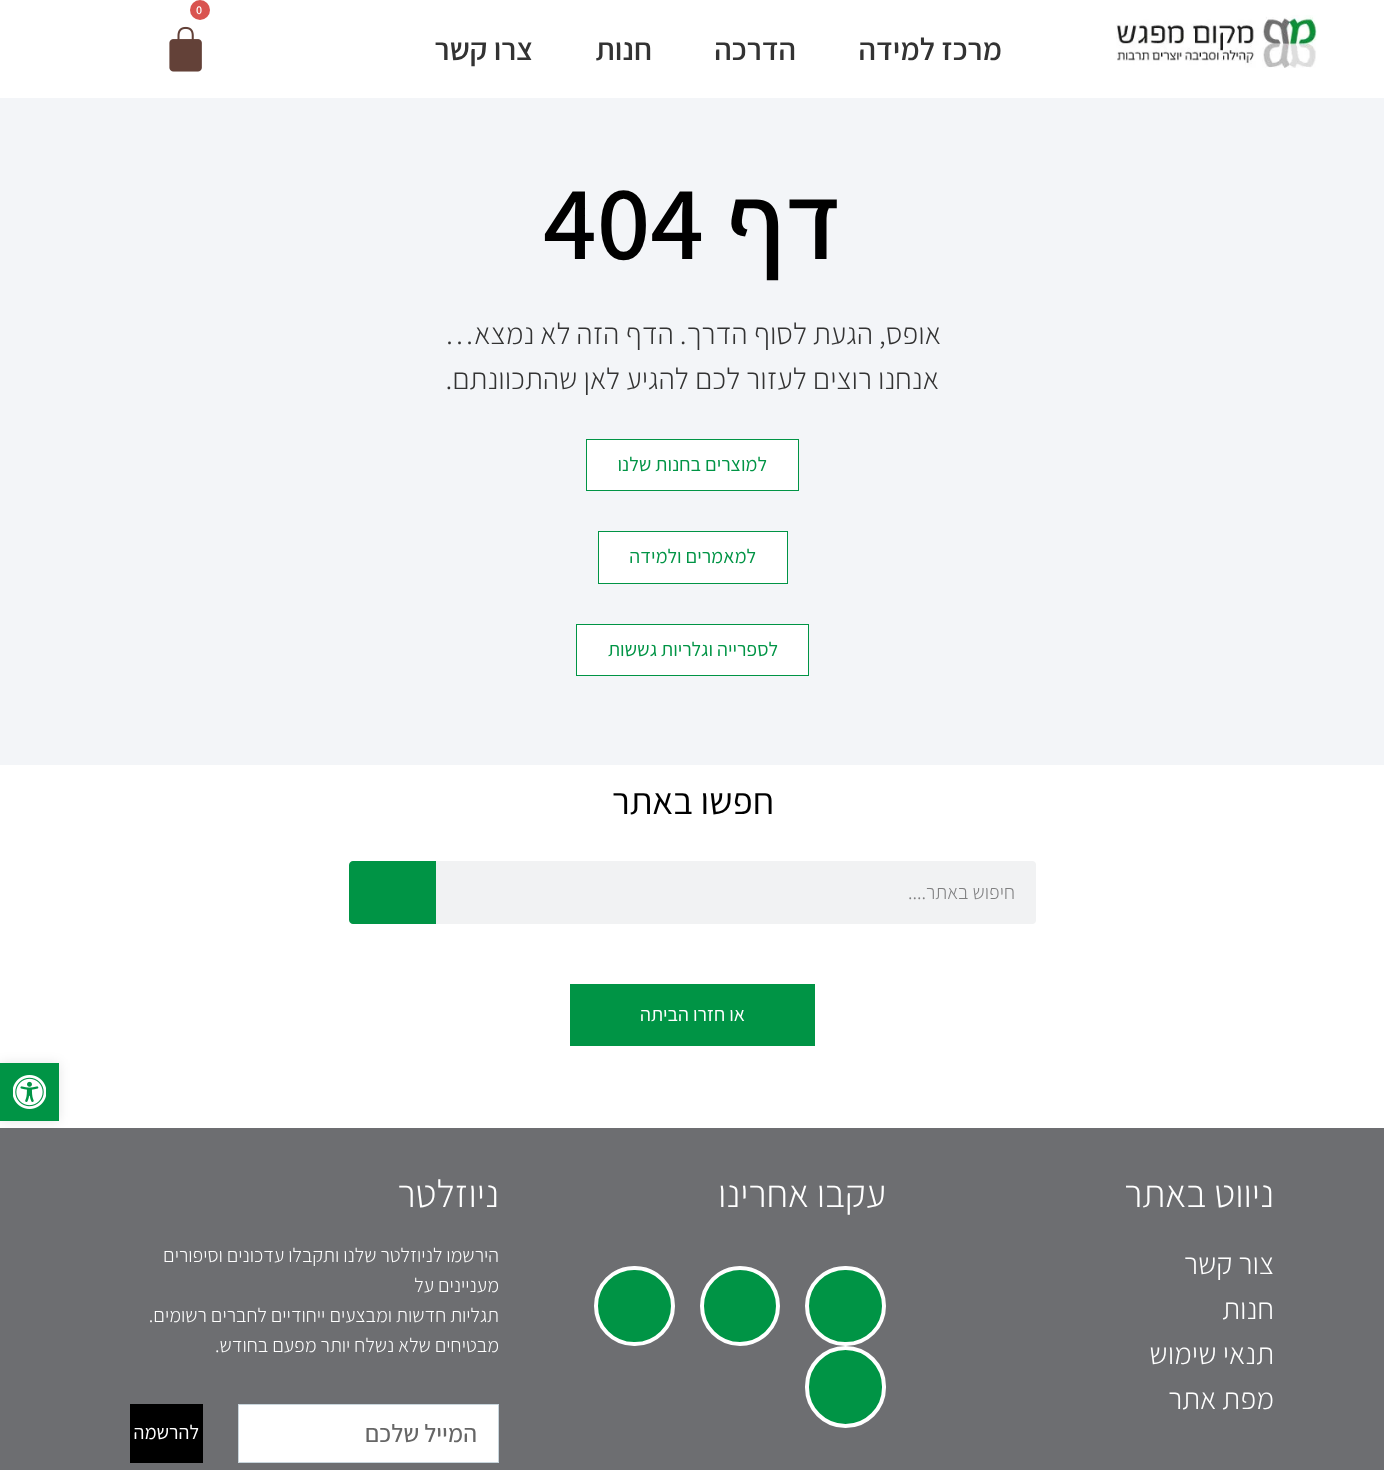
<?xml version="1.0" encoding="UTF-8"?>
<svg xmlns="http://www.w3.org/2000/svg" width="1384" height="1470">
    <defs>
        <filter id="blur1" x="-50%" y="-200%" width="200%" height="500%"><feGaussianBlur stdDeviation="6"/></filter>
    </defs>
    <rect width="100%" height="100%" fill="#FFFFFF"/>
    <circle cx="200" cy="10" r="10" fill="#D9534F"/>
    <text x="196" y="14" font-family="Assistant" font-size="12" font-weight="600" fill="#FFFFFF">0</text>
    <image x="169" y="26" width="33" height="46" href="img_01.png"/>
    <image x="1116" y="15" width="201" height="53" href="img_02.png"/>
    <text x="1002" y="60" font-family="Assistant" font-size="31.25" font-weight="600" direction="rtl" fill="#333333">מרכז למידה</text>
    <text x="796" y="60" font-family="Assistant" font-size="31.25" font-weight="600" direction="rtl" fill="#333333">הדרכה</text>
    <text x="652" y="60" font-family="Assistant" font-size="31.25" font-weight="600" direction="rtl" fill="#333333">חנות</text>
    <text x="533" y="60" font-family="Assistant" font-size="31.25" font-weight="600" direction="rtl" fill="#333333">צרו קשר</text>
    <rect x="0" y="98" width="1384" height="667" fill="#F3F5F8"/>
    <text x="842" y="259" font-family="Assistant" font-size="106" font-weight="600" direction="rtl" fill="#000000">דף</text>
    <text x="543" y="259" font-family="Assistant" font-size="106" font-weight="600" fill="#000000">404</text>
    <text x="941" y="344" font-family="Assistant" font-size="30" font-weight="300" direction="rtl" fill="#333333">אופס, הגעת לסוף הדרך. הדף הזה לא נמצא…</text>
    <text x="939" y="389" font-family="Assistant" font-size="30" font-weight="300" direction="rtl" fill="#333333">אנחנו רוצים לעזור לכם להגיע לאן שהתכוונתם.</text>
    <rect x="586.5" y="439.5" width="212" height="51" fill="#FFFFFF" stroke="#009445"/>
    <text x="767" y="471" font-family="Assistant" font-size="20" direction="rtl" fill="#009445">למוצרים בחנות שלנו</text>
    <rect x="598.5" y="531.5" width="189" height="52" fill="#FFFFFF" stroke="#009445"/>
    <text x="756" y="563" font-family="Assistant" font-size="20" direction="rtl" fill="#009445">למאמרים ולמידה</text>
    <rect x="576.5" y="624.5" width="232" height="51" fill="#FFFFFF" stroke="#009445"/>
    <text x="778" y="656" font-family="Assistant" font-size="20" direction="rtl" fill="#009445">לספרייה וגלריות גששות</text>
    <text x="774" y="814" font-family="Assistant" font-size="37.5" direction="rtl" fill="#000000">חפשו באתר</text>
    <rect x="349" y="861" width="687" height="63" rx="4" fill="#F1F2F3"/>
    <text x="1015" y="899" font-family="Assistant" font-size="20" font-weight="300" direction="rtl" fill="#7F7F80">חיפוש באתר....</text>
    <path d="M 353 861 H 436 V 924 H 353 C 351 924 349 922 349 920 V 865 C 349 863 351 861 353 861 Z" fill="#009445"/>
    <rect x="570" y="984" width="245" height="62" fill="#009445"/>
    <text x="745" y="1021" font-family="Assistant" font-size="20" direction="rtl" fill="#FFFFFF">או חזרו הביתה</text>
    <rect x="0" y="1128" width="1384" height="342" fill="#6D6E71"/>
    <rect x="0" y="1063" width="59" height="58" fill="#000000" fill-opacity="0.1" filter="url(#blur1)"/>
    <rect x="0" y="1063" width="59" height="58" fill="#009445"/>
    <image x="13" y="1075" width="33" height="34" href="img_03.png"/>
    <text x="1274" y="1207" font-family="Assistant" font-size="38.75" font-weight="300" direction="rtl" fill="#FFFFFF">ניווט באתר</text>
    <text font-family="Assistant" font-size="30" font-weight="300" direction="rtl" fill="#FFFFFF">
        <tspan x="1274" y="1274">צור קשר</tspan>
        <tspan x="1274" y="1319">חנות</tspan>
        <tspan x="1274" y="1364">תנאי שימוש</tspan>
        <tspan x="1274" y="1409">מפת אתר</tspan>
    </text>
    <text x="886" y="1207" font-family="Assistant" font-size="38.75" font-weight="300" direction="rtl" fill="#FFFFFF">עקבו אחרינו</text>
    <rect x="807" y="1268" width="77" height="76" rx="38" fill="#009445" stroke="#FFFFFF" stroke-width="4"/>
    <circle cx="740" cy="1306" r="38" fill="#009445" stroke="#FFFFFF" stroke-width="4"/>
    <rect x="596" y="1268" width="77" height="76" rx="38" fill="#009445" stroke="#FFFFFF" stroke-width="4"/>
    <rect x="807" y="1348" width="77" height="78" rx="38.5" fill="#009445" stroke="#FFFFFF" stroke-width="4"/>
    <text x="499" y="1207" font-family="Assistant" font-size="38.75" font-weight="300" direction="rtl" fill="#FFFFFF">ניוזלטר</text>
    <text font-family="Assistant" font-size="20" font-weight="300" direction="rtl" fill="#FFFFFF">
        <tspan x="499" y="1262">הירשמו לניוזלטר שלנו ותקבלו עדכונים וסיפורים</tspan>
        <tspan x="499" y="1292">מעניינים על</tspan>
        <tspan x="499" y="1322">תגליות חדשות ומבצעים ייחודיים לחברים רשומים.</tspan>
        <tspan x="499" y="1352">מבטיחים שלא נשלח יותר מפעם בחודש.</tspan>
    </text>
    <rect x="238.5" y="1404.5" width="260" height="58" fill="#FFFFFF" stroke="#C8D5DC"/>
    <text x="477" y="1442" font-family="Assistant" font-size="25" font-weight="500" direction="rtl" fill="#666666">המייל שלכם</text>
    <rect x="130" y="1404" width="73" height="59" fill="#000000"/>
    <text x="199" y="1439" font-family="Assistant" font-size="20" direction="rtl" fill="#FFFFFF">להרשמה</text>
</svg>
